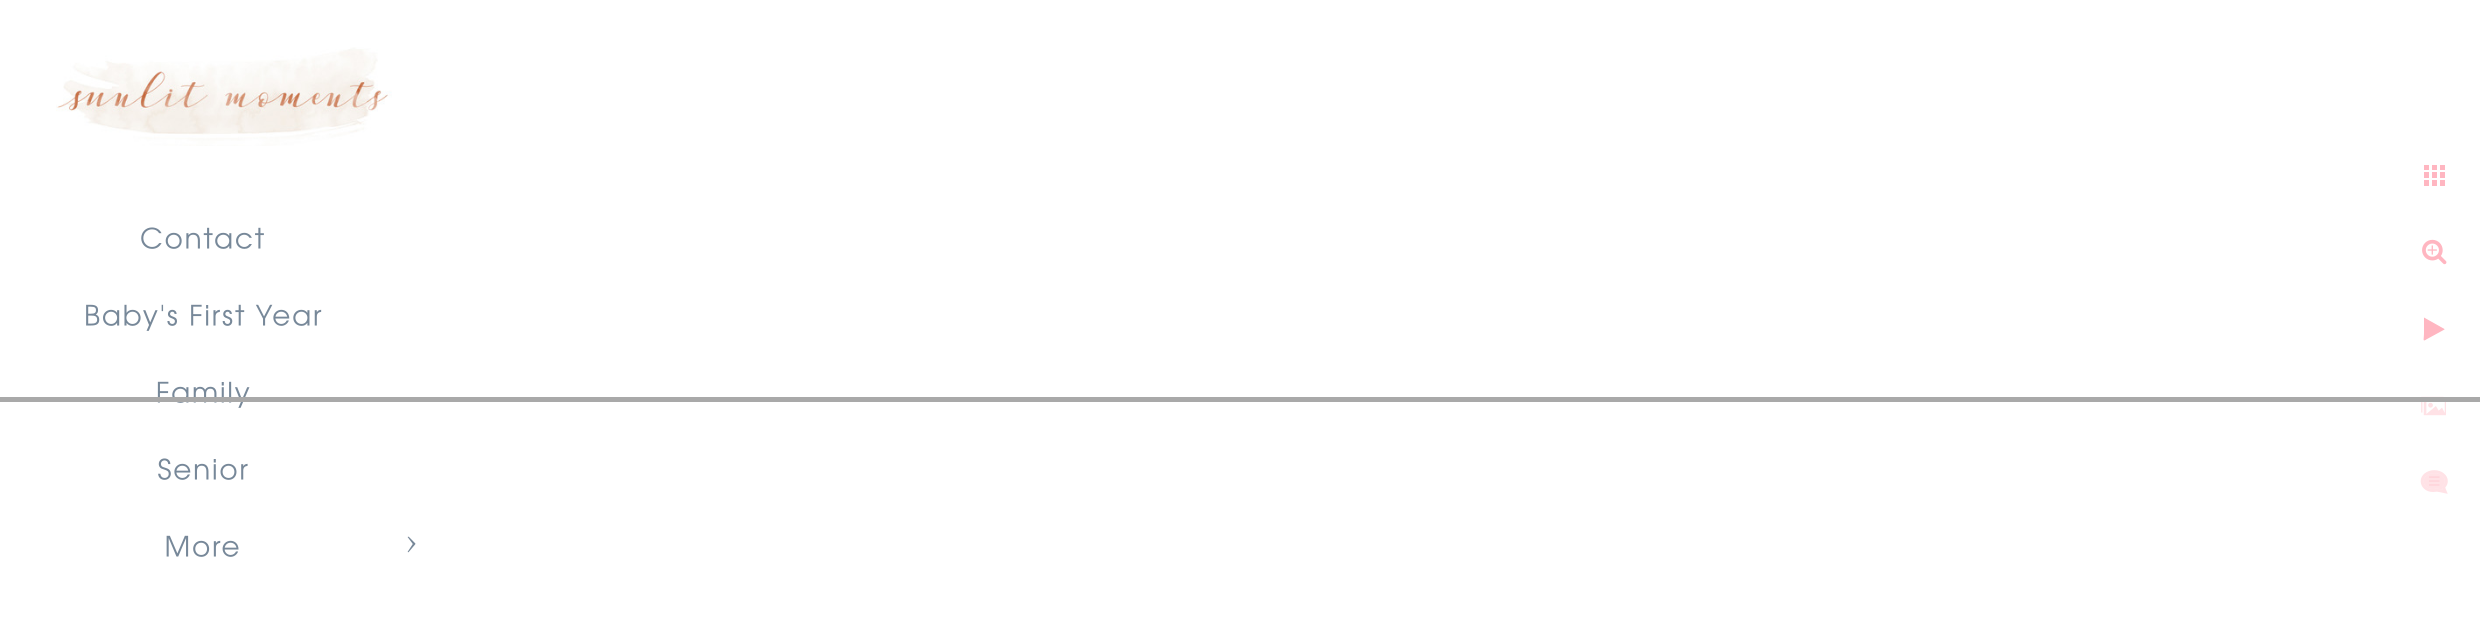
<?xml version="1.0" encoding="UTF-8"?>
<svg xmlns="http://www.w3.org/2000/svg" width="2480" height="622">
    <rect width="100%" height="100%" fill="#FFFFFF"/>
    <image x="56" y="47" width="336" height="99" href="img_01.png"/>
    <image x="141" y="227" width="123" height="22" href="img_02.png"/>
    <image x="86" y="304" width="236" height="27" href="img_03.png"/>
    <image x="157" y="381" width="93" height="27" href="img_04.png"/>
    <image x="158" y="458" width="90" height="22" href="img_05.png"/>
    <image x="166" y="535" width="73" height="22" href="img_06.png"/>
    <image x="407" y="536" width="9" height="17" href="img_07.png"/>
    <image x="2424" y="165" width="21" height="21" href="img_08.png"/>
    <image x="2422" y="239" width="25" height="26" href="img_09.png"/>
    <path d="M 2444.5 329.5 L 2428 338.5 C 2422 342 2424 341 2424 332.5 V 318 V 317.5 L 2444.5 329 Z" fill="#FFB6C1"/>
    <image x="2421" y="396" width="25" height="20" href="img_10.png"/>
    <image x="2420" y="470" width="28" height="24" href="img_11.png"/>
    <rect x="0" y="397" width="2480" height="5" fill="#A9A9A9"/>
</svg>
